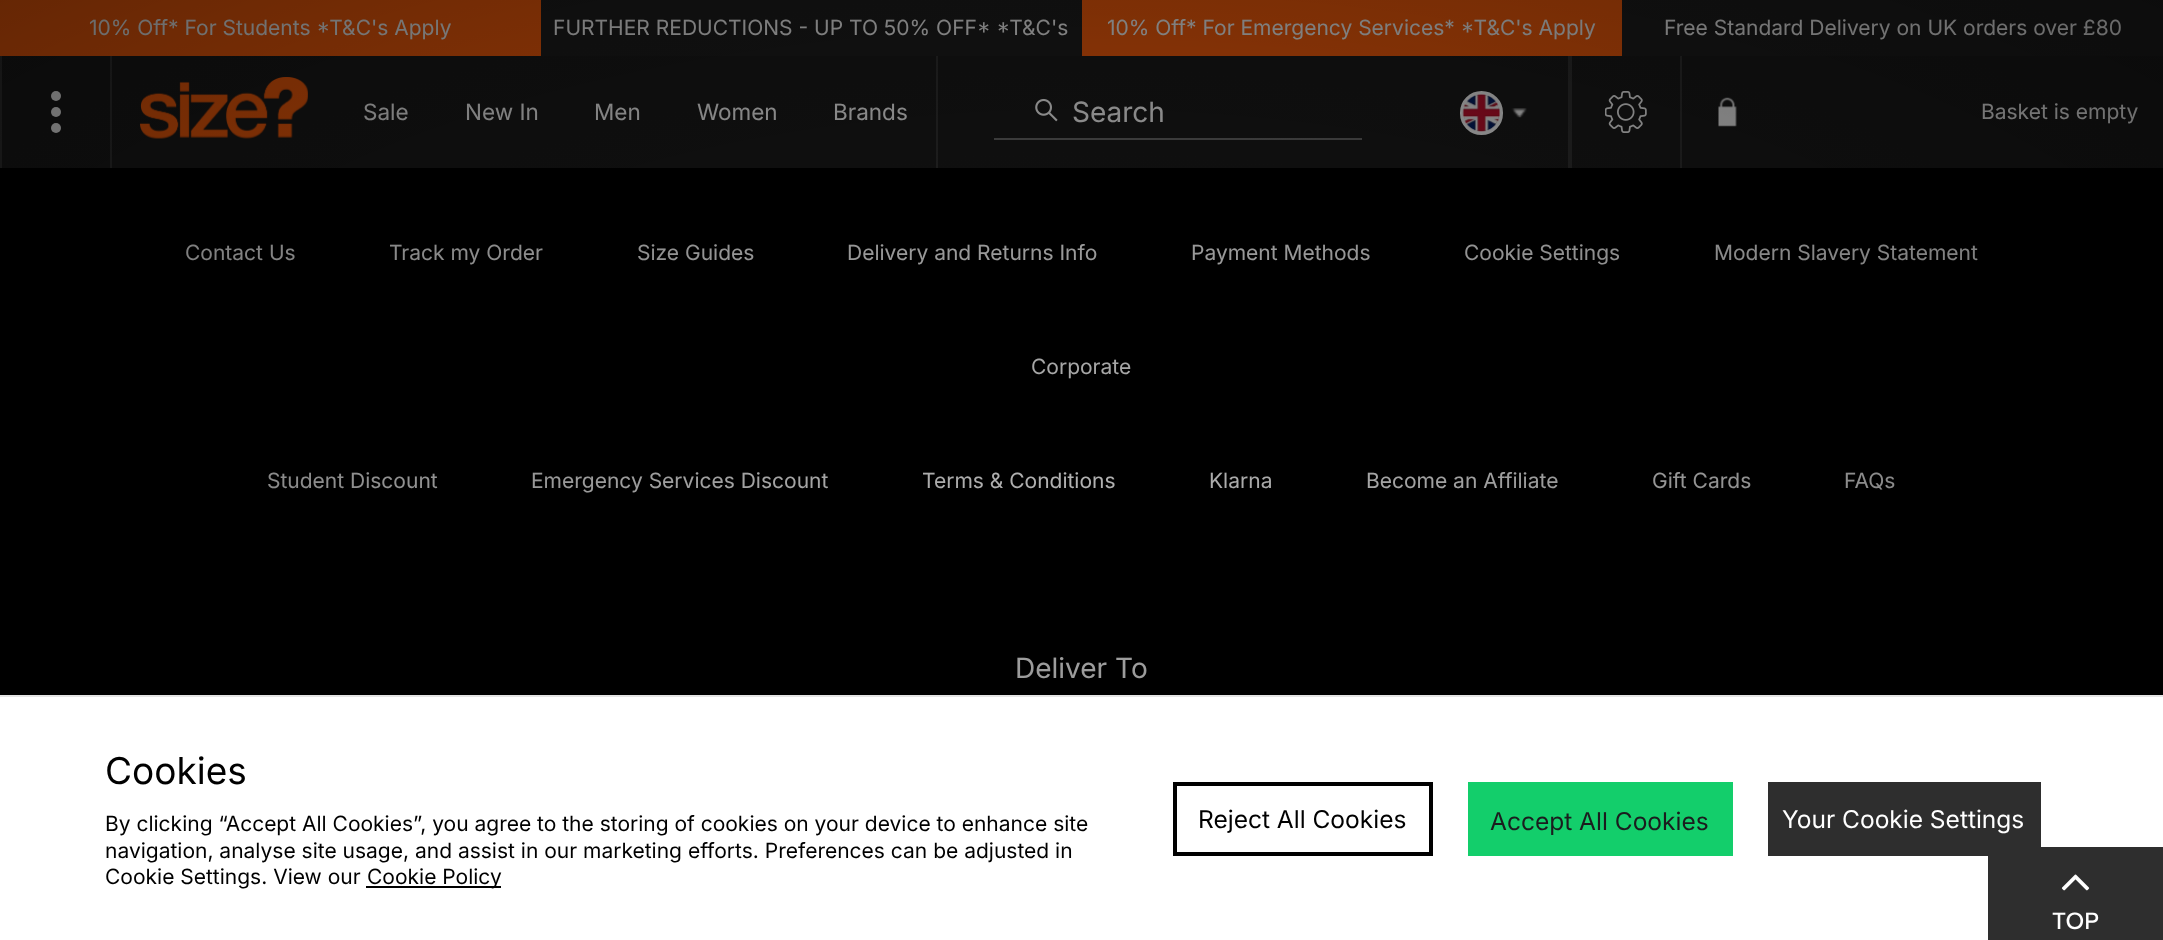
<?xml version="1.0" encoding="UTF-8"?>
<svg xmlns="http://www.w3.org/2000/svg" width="2163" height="940">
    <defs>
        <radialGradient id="g1" gradientUnits="userSpaceOnUse" cx="0" cy="0" r="1" gradientTransform="matrix(1529 0 0 666 1082 471)"><stop offset="0" stop-color="#000000" stop-opacity="0.3"/><stop offset="1" stop-color="#000000" stop-opacity="0.6"/></radialGradient>
    </defs>
    <rect width="100%" height="100%" fill="#000000"/>
    <rect x="541" y="0" width="1622" height="56" fill="#1F1F1F"/>
    <rect x="0" y="0" width="541" height="56" fill="#FF600B"/>
    <text x="89" y="35" font-family="Inter" font-size="21" fill="#FFFFFF">10% Off* For Students *T&amp;C's Apply</text>
    <text x="553" y="35" font-family="Inter" font-size="21" fill="#FFFFFF">FURTHER REDUCTIONS - UP TO 50% OFF* *T&amp;C's</text>
    <rect x="1082" y="0" width="540" height="56" fill="#FF600B"/>
    <text x="1107" y="35" font-family="Inter" font-size="21" fill="#FFFFFF">10% Off* For Emergency Services* *T&amp;C's Apply</text>
    <text x="1664" y="35" font-family="Inter" font-size="21" fill="#FFFFFF">Free Standard Delivery on UK orders over £80</text>
    <rect x="2" y="56" width="2161" height="112" fill="#1B1B1B"/>
    <rect x="110" y="56" width="2" height="112" fill="#333333"/>
    <rect x="0" y="56" width="2" height="112" fill="#333333"/>
    <circle cx="56" cy="128" r="5" fill="#FFFFFF"/>
    <circle cx="56" cy="112" r="5" fill="#FFFFFF"/>
    <circle cx="56" cy="96" r="5" fill="#FFFFFF"/>
    <image x="140" y="77" width="168" height="62" href="img_01.png"/>
    <rect x="936" y="56" width="2" height="112" fill="#333333"/>
    <text x="363" y="120" font-family="Inter" font-size="22.5" fill="#FFFFFF">Sale</text>
    <text x="465" y="120" font-family="Inter" font-size="22.5" fill="#FFFFFF">New In</text>
    <text x="594" y="120" font-family="Inter" font-size="22.5" fill="#FFFFFF">Men</text>
    <text x="697" y="120" font-family="Inter" font-size="22.5" fill="#FFFFFF">Women</text>
    <text x="833" y="120" font-family="Inter" font-size="22.5" fill="#FFFFFF">Brands</text>
    <rect x="994" y="138" width="368" height="2" fill="#6B6B6B"/>
    <image x="1035" y="98" width="23" height="24" href="img_02.png"/>
    <text x="1072" y="122" font-family="Inter" font-size="28" fill="#FFFFFF">Search</text>
    <rect x="1568" y="56" width="4" height="112" fill="#333333"/>
    <rect x="1462" y="93" width="39" height="40" rx="19.5" fill="none" stroke="#FFFFFF" stroke-width="4"/>
    <image x="1462" y="94" width="39" height="38" href="img_03.png"/>
    <image x="1511" y="108" width="16" height="10" href="img_04.png"/>
    <rect x="1680" y="56" width="2" height="112" fill="#333333"/>
    <image x="1605" y="91" width="42" height="42" href="img_05.png"/>
    <image x="1718" y="97" width="19" height="30" href="img_06.png"/>
    <text x="1981" y="119" font-family="Inter" font-size="21" fill="#FFFFFF">Basket is empty</text>
    <text x="185" y="260" font-family="Inter" font-size="21" fill="#FFFFFF">Contact Us</text>
    <text x="389" y="260" font-family="Inter" font-size="21" fill="#FFFFFF">Track my Order</text>
    <text x="637" y="260" font-family="Inter" font-size="21" fill="#FFFFFF">Size Guides</text>
    <text x="847" y="260" font-family="Inter" font-size="21" fill="#FFFFFF">Delivery and Returns Info</text>
    <text x="1191" y="260" font-family="Inter" font-size="21" fill="#FFFFFF">Payment Methods</text>
    <text x="1464" y="260" font-family="Inter" font-size="21" fill="#FFFFFF">Cookie Settings</text>
    <text x="1714" y="260" font-family="Inter" font-size="21" fill="#FFFFFF">Modern Slavery Statement</text>
    <text x="1031" y="374" font-family="Inter" font-size="21" fill="#FFFFFF">Corporate</text>
    <text x="267" y="488" font-family="Inter" font-size="21" fill="#FFFFFF">Student Discount</text>
    <text x="531" y="488" font-family="Inter" font-size="21" fill="#FFFFFF">Emergency Services Discount</text>
    <text x="922" y="488" font-family="Inter" font-size="21" fill="#FFFFFF">Terms &amp; Conditions</text>
    <text x="1209" y="488" font-family="Inter" font-size="21" fill="#FFFFFF">Klarna</text>
    <text x="1366" y="488" font-family="Inter" font-size="21" fill="#FFFFFF">Become an Affiliate</text>
    <text x="1652" y="488" font-family="Inter" font-size="21" fill="#FFFFFF">Gift Cards</text>
    <text x="1844" y="488" font-family="Inter" font-size="21" fill="#FFFFFF">FAQs</text>
    <text x="1015" y="678" font-family="Inter" font-size="28" fill="#FFFFFF">Deliver To</text>
    <rect x="0" y="0" width="2163" height="679" fill="url(#g1)"/>
    <rect x="0" y="697" width="2163" height="243" fill="#FFFFFF"/>
    <rect x="0" y="695" width="2163" height="2" fill="#E5E5E5"/>
    <text x="105" y="784" font-family="Inter" font-size="37" fill="#000000">Cookies</text>
    <text font-family="Inter" font-size="21" fill="#000000">
        <tspan x="105" y="831">By clicking “Accept All Cookies”, you agree to the storing of cookies on your device to enhance site</tspan>
        <tspan x="105" y="858">navigation, analyse site usage, and assist in our marketing efforts. Preferences can be adjusted in</tspan>
        <tspan x="105" y="884">Cookie Settings. View our</tspan>
    </text>
    <rect x="366" y="886" width="135" height="2" fill="#000000"/>
    <text x="367" y="884" font-family="Inter" font-size="21" fill="#000000">Cookie Policy</text>
    <rect x="1175" y="784" width="256" height="70" fill="none" stroke="#000000" stroke-width="4"/>
    <text x="1198" y="828" font-family="Inter" font-size="24.5" fill="#000000">Reject All Cookies</text>
    <rect x="1468" y="782" width="265" height="74" fill="#13CE6B"/>
    <text x="1490" y="830" font-family="Inter" font-size="24.5" fill="#1B1C1E">Accept All Cookies</text>
    <rect x="1768" y="782" width="273" height="74" fill="#2E2E2E"/>
    <text x="1782" y="828" font-family="Inter" font-size="24.5" fill="#FFFFFF">Your Cookie Settings</text>
    <rect x="1988" y="847" width="175" height="93" fill="#2E2E2E"/>
    <image x="2061" y="874" width="29" height="17" href="img_07.png"/>
    <text x="2052" y="929" font-family="Proxima Nova" font-size="24.5" font-weight="500" fill="#FFFFFF">TOP</text>
</svg>
